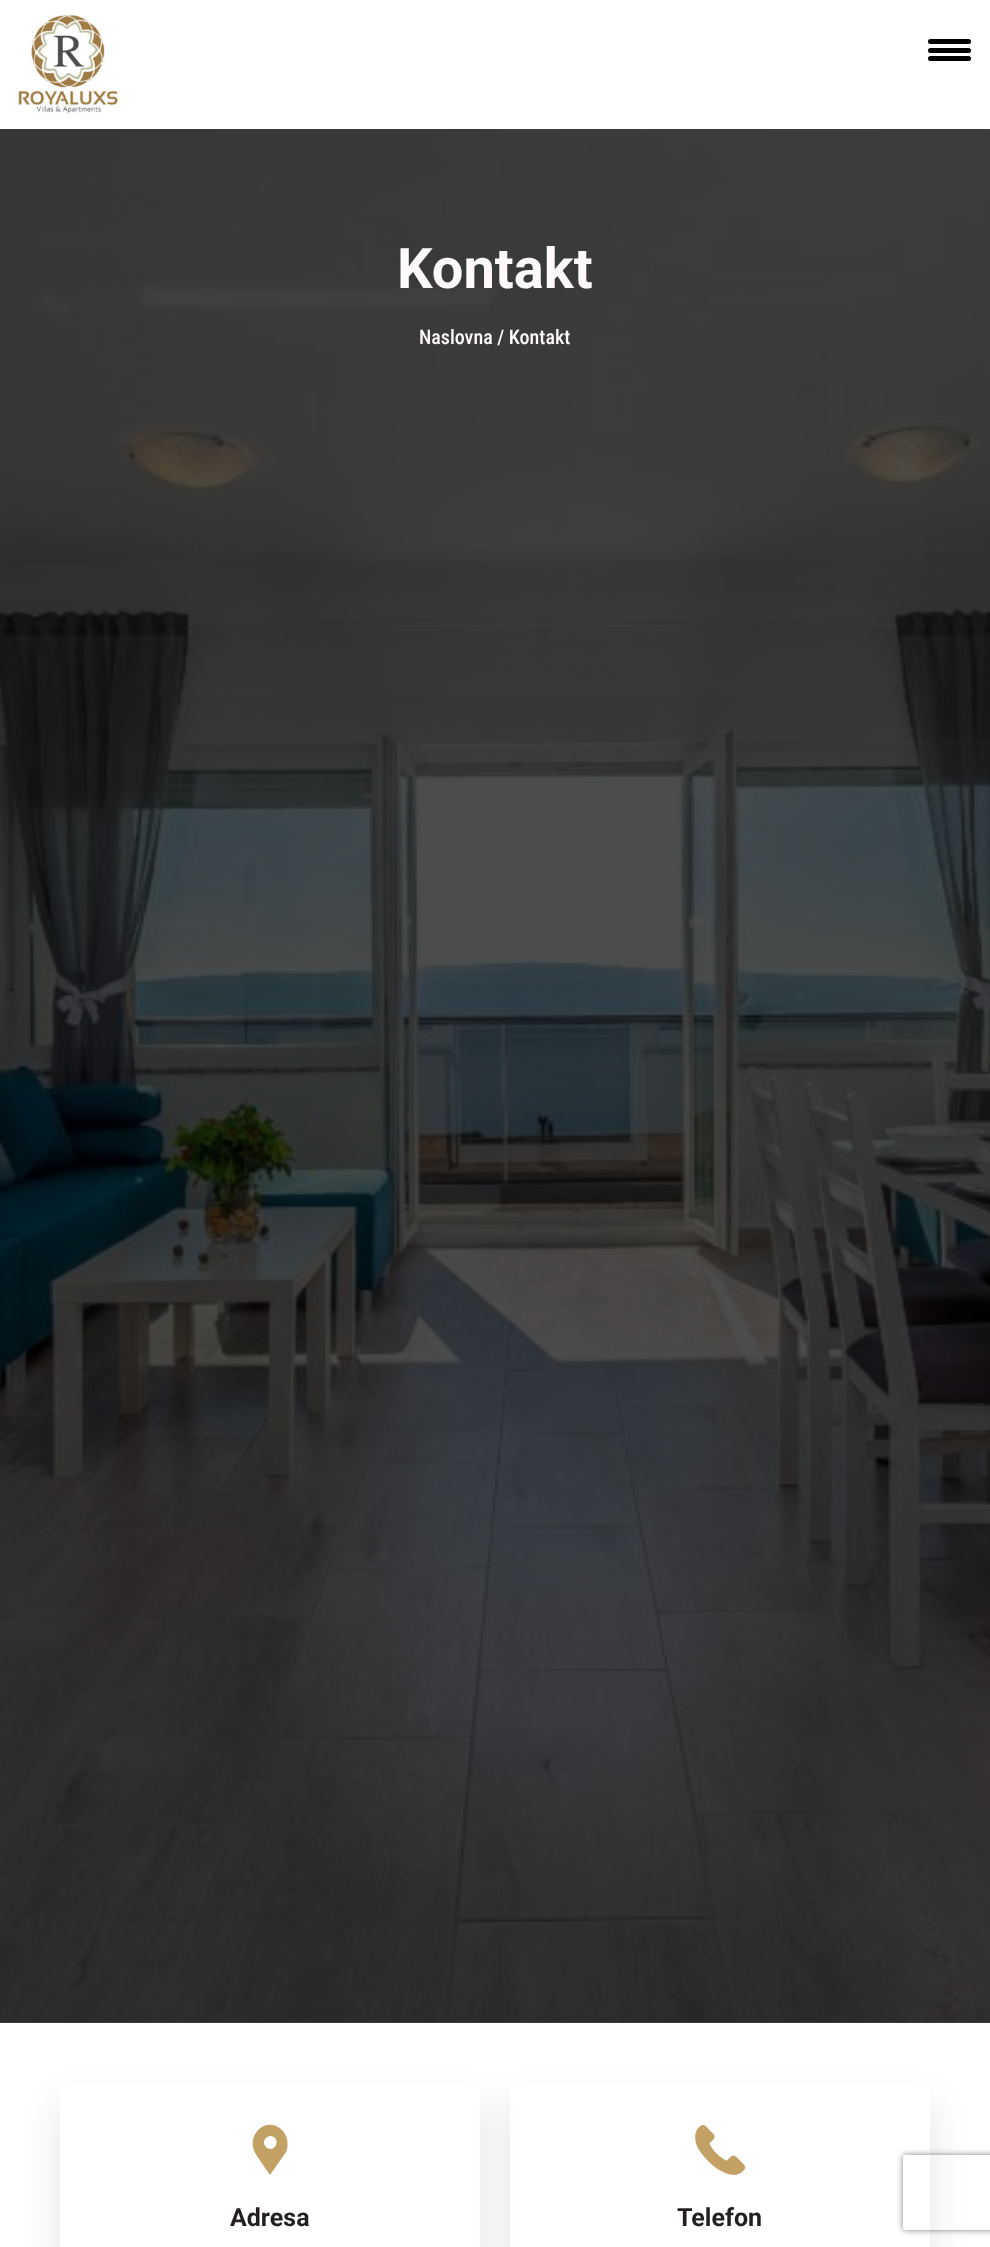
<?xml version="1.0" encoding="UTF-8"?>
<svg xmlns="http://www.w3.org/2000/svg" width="990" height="2247">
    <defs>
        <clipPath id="clip1"><path d="M 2 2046 H 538 V 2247 H 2 Z M 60 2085 H 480 V 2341 H 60 Z" clip-rule="evenodd"/></clipPath>
        <filter id="blur1" x="-50%" y="-200%" width="200%" height="500%"><feGaussianBlur stdDeviation="19"/></filter>
        <clipPath id="clip2"><path d="M 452 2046 H 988 V 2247 H 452 Z M 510 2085 H 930 V 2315 H 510 Z" clip-rule="evenodd"/></clipPath>
        <clipPath id="clip3"><path d="M 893 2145 H 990 V 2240 H 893 Z M 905.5 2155 H 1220.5 C 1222 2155 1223 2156 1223 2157.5 V 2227.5 C 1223 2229 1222 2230 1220.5 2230 H 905.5 C 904 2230 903 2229 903 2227.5 V 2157.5 C 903 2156 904 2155 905.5 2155 Z" clip-rule="evenodd"/></clipPath>
        <filter id="blur2" x="-50%" y="-200%" width="200%" height="500%"><feGaussianBlur stdDeviation="3"/></filter>
    </defs>
    <rect width="100%" height="100%" fill="#FFFFFF"/>
    <rect x="0" y="2022" width="990" height="1" fill="#4D4D4D"/>
    <image x="18" y="15" width="100" height="99" href="img_01.png"/>
    <rect x="928" y="39" width="43" height="5" rx="2.5" fill="#000000"/>
    <rect x="928" y="48" width="43" height="5" rx="2.5" fill="#000000"/>
    <rect x="928" y="56" width="43" height="5" rx="2.5" fill="#000000"/>
    <image x="0" y="129" width="990" height="1894" href="img_02.png"/>
    <text x="397" y="288" font-family="Roboto" font-size="56" font-weight="700" fill="#FEFAFA">Kontakt</text>
    <text x="419" y="344" font-family="Roboto Condensed" font-size="20" font-weight="500" fill="#FEFAFA">Naslovna / Kontakt</text>
    <g clip-path="url(#clip1)">
        <rect x="60" y="2104" width="420" height="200" fill="#000000" fill-opacity="0.1" filter="url(#blur1)"/>
    </g>
    <path d="M 282 2130 C 288 2136 289 2145 286 2152 L 270 2175 L 261 2162 C 258 2157 254 2153 253 2147 C 250 2130 269 2117 282 2130 Z M 266 2147 C 272 2153 280 2144 275 2138 C 269 2132 260 2141 266 2147 Z" fill="#C3A165"/>
    <text x="230" y="2226" font-family="Roboto" font-size="25" font-weight="700" fill="#241F1F">Adresa</text>
    <g clip-path="url(#clip2)">
        <rect x="510" y="2104" width="420" height="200" fill="#000000" fill-opacity="0.1" filter="url(#blur1)"/>
    </g>
    <image x="695" y="2125" width="51" height="50" href="img_03.png"/>
    <text x="677" y="2226" font-family="Roboto" font-size="25" font-weight="700" fill="#241F1F">Telefon</text>
    <g clip-path="url(#clip3)">
        <rect x="903" y="2155" width="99" height="75" rx="2.5" fill="#808080" filter="url(#blur2)"/>
    </g>
</svg>
